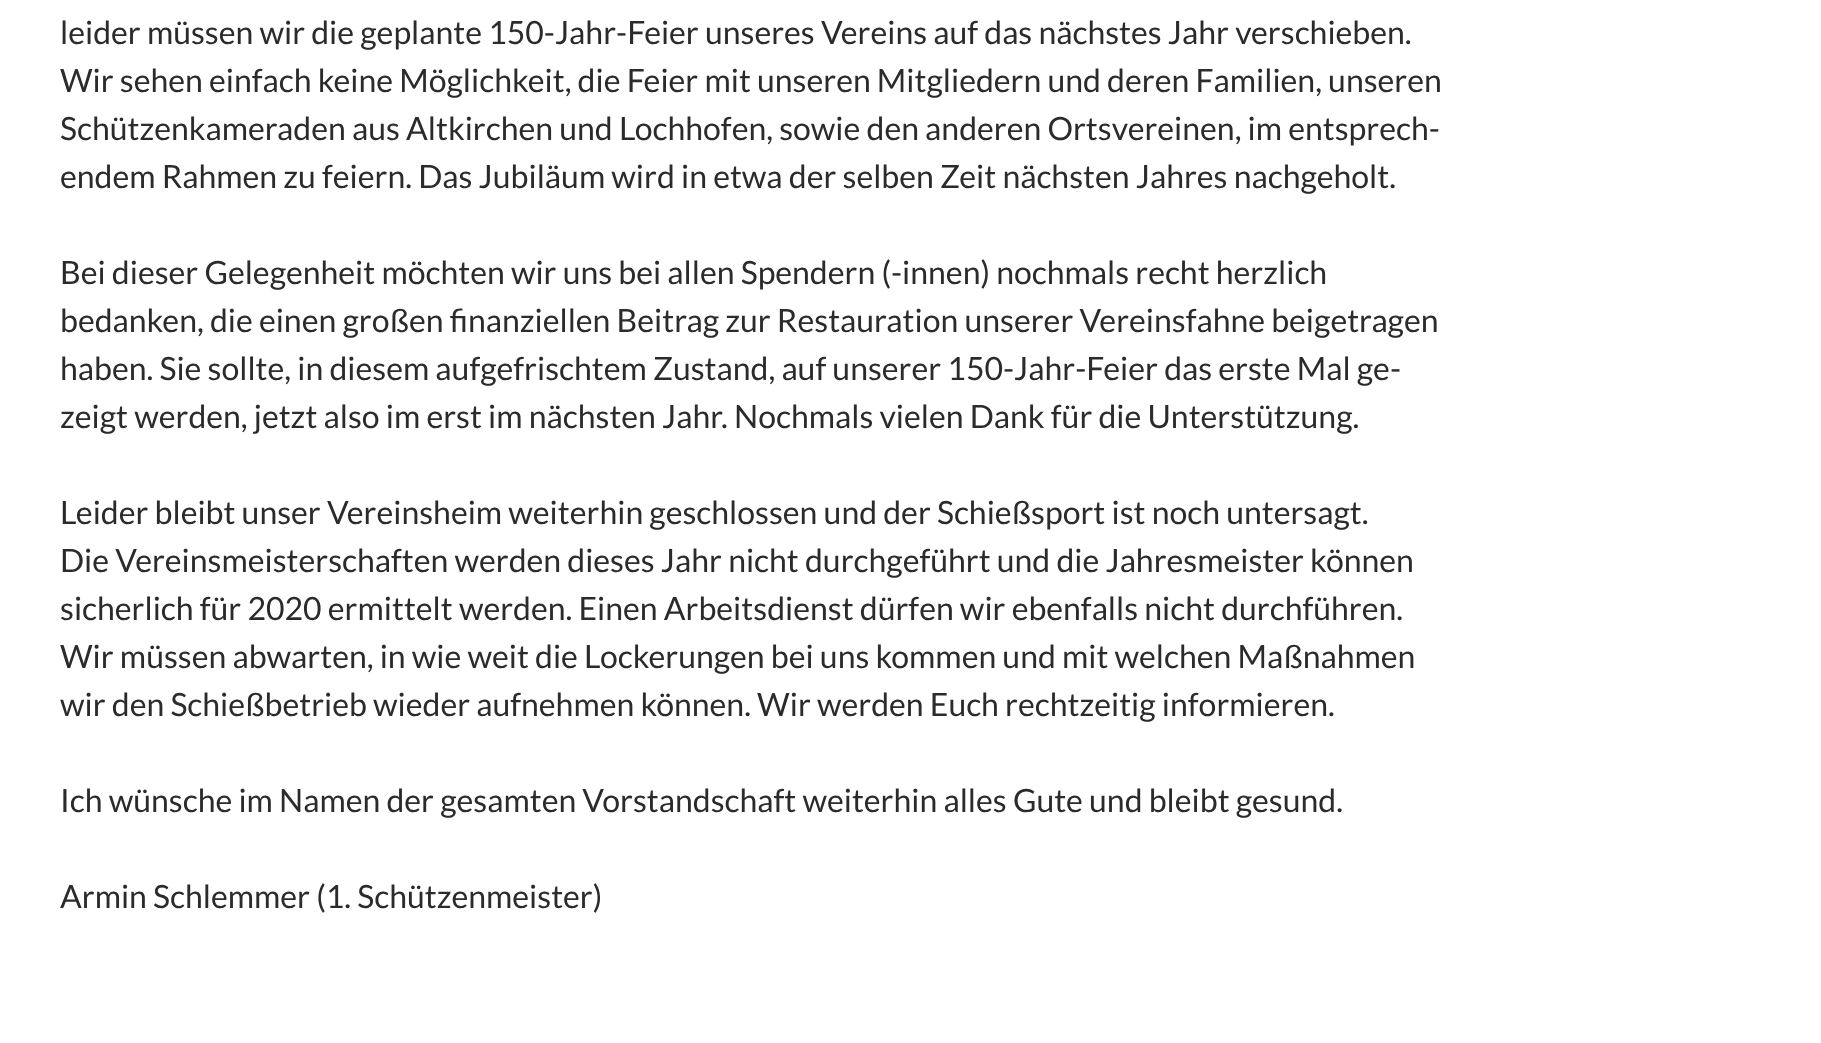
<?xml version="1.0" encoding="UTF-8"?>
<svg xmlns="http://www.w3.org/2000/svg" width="1821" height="1043">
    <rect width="100%" height="100%" fill="#FFFFFF"/>
    <text font-family="Lato" font-size="32" fill="#2B2B2B">
        <tspan x="60" y="44">leider müssen wir die geplante 150-Jahr-Feier unseres Vereins auf das nächstes Jahr verschieben.</tspan>
        <tspan x="60" y="92">Wir sehen einfach keine Möglichkeit, die Feier mit unseren Mitgliedern und deren Familien, unseren</tspan>
        <tspan x="60" y="140">Schützenkameraden aus Altkirchen und Lochhofen, sowie den anderen Ortsvereinen, im entsprech-</tspan>
        <tspan x="60" y="188">endem Rahmen zu feiern. Das Jubiläum wird in etwa der selben Zeit nächsten Jahres nachgeholt.</tspan>
    </text>
    <text font-family="Lato" font-size="32" fill="#2B2B2B">
        <tspan x="60" y="284">Bei dieser Gelegenheit möchten wir uns bei allen Spendern (-innen) nochmals recht herzlich</tspan>
        <tspan x="60" y="332">bedanken, die einen großen finanziellen Beitrag zur Restauration unserer Vereinsfahne beigetragen</tspan>
        <tspan x="60" y="380">haben. Sie sollte, in diesem aufgefrischtem Zustand, auf unserer 150-Jahr-Feier das erste Mal ge-</tspan>
        <tspan x="60" y="428">zeigt werden, jetzt also im erst im nächsten Jahr. Nochmals vielen Dank für die Unterstützung.</tspan>
    </text>
    <text font-family="Lato" font-size="32" fill="#2B2B2B">
        <tspan x="60" y="524">Leider bleibt unser Vereinsheim weiterhin geschlossen und der Schießsport ist noch untersagt.</tspan>
        <tspan x="60" y="572">Die Vereinsmeisterschaften werden dieses Jahr nicht durchgeführt und die Jahresmeister können</tspan>
        <tspan x="60" y="620">sicherlich für 2020 ermittelt werden. Einen Arbeitsdienst dürfen wir ebenfalls nicht durchführen.</tspan>
        <tspan x="60" y="668">Wir müssen abwarten, in wie weit die Lockerungen bei uns kommen und mit welchen Maßnahmen</tspan>
        <tspan x="60" y="716">wir den Schießbetrieb wieder aufnehmen können. Wir werden Euch rechtzeitig informieren.</tspan>
    </text>
    <text x="60" y="812" font-family="Lato" font-size="32" fill="#2B2B2B">Ich wünsche im Namen der gesamten Vorstandschaft weiterhin alles Gute und bleibt gesund.</text>
    <text x="60" y="908" font-family="Lato" font-size="32" fill="#2B2B2B">Armin Schlemmer (1. Schützenmeister)</text>
</svg>
